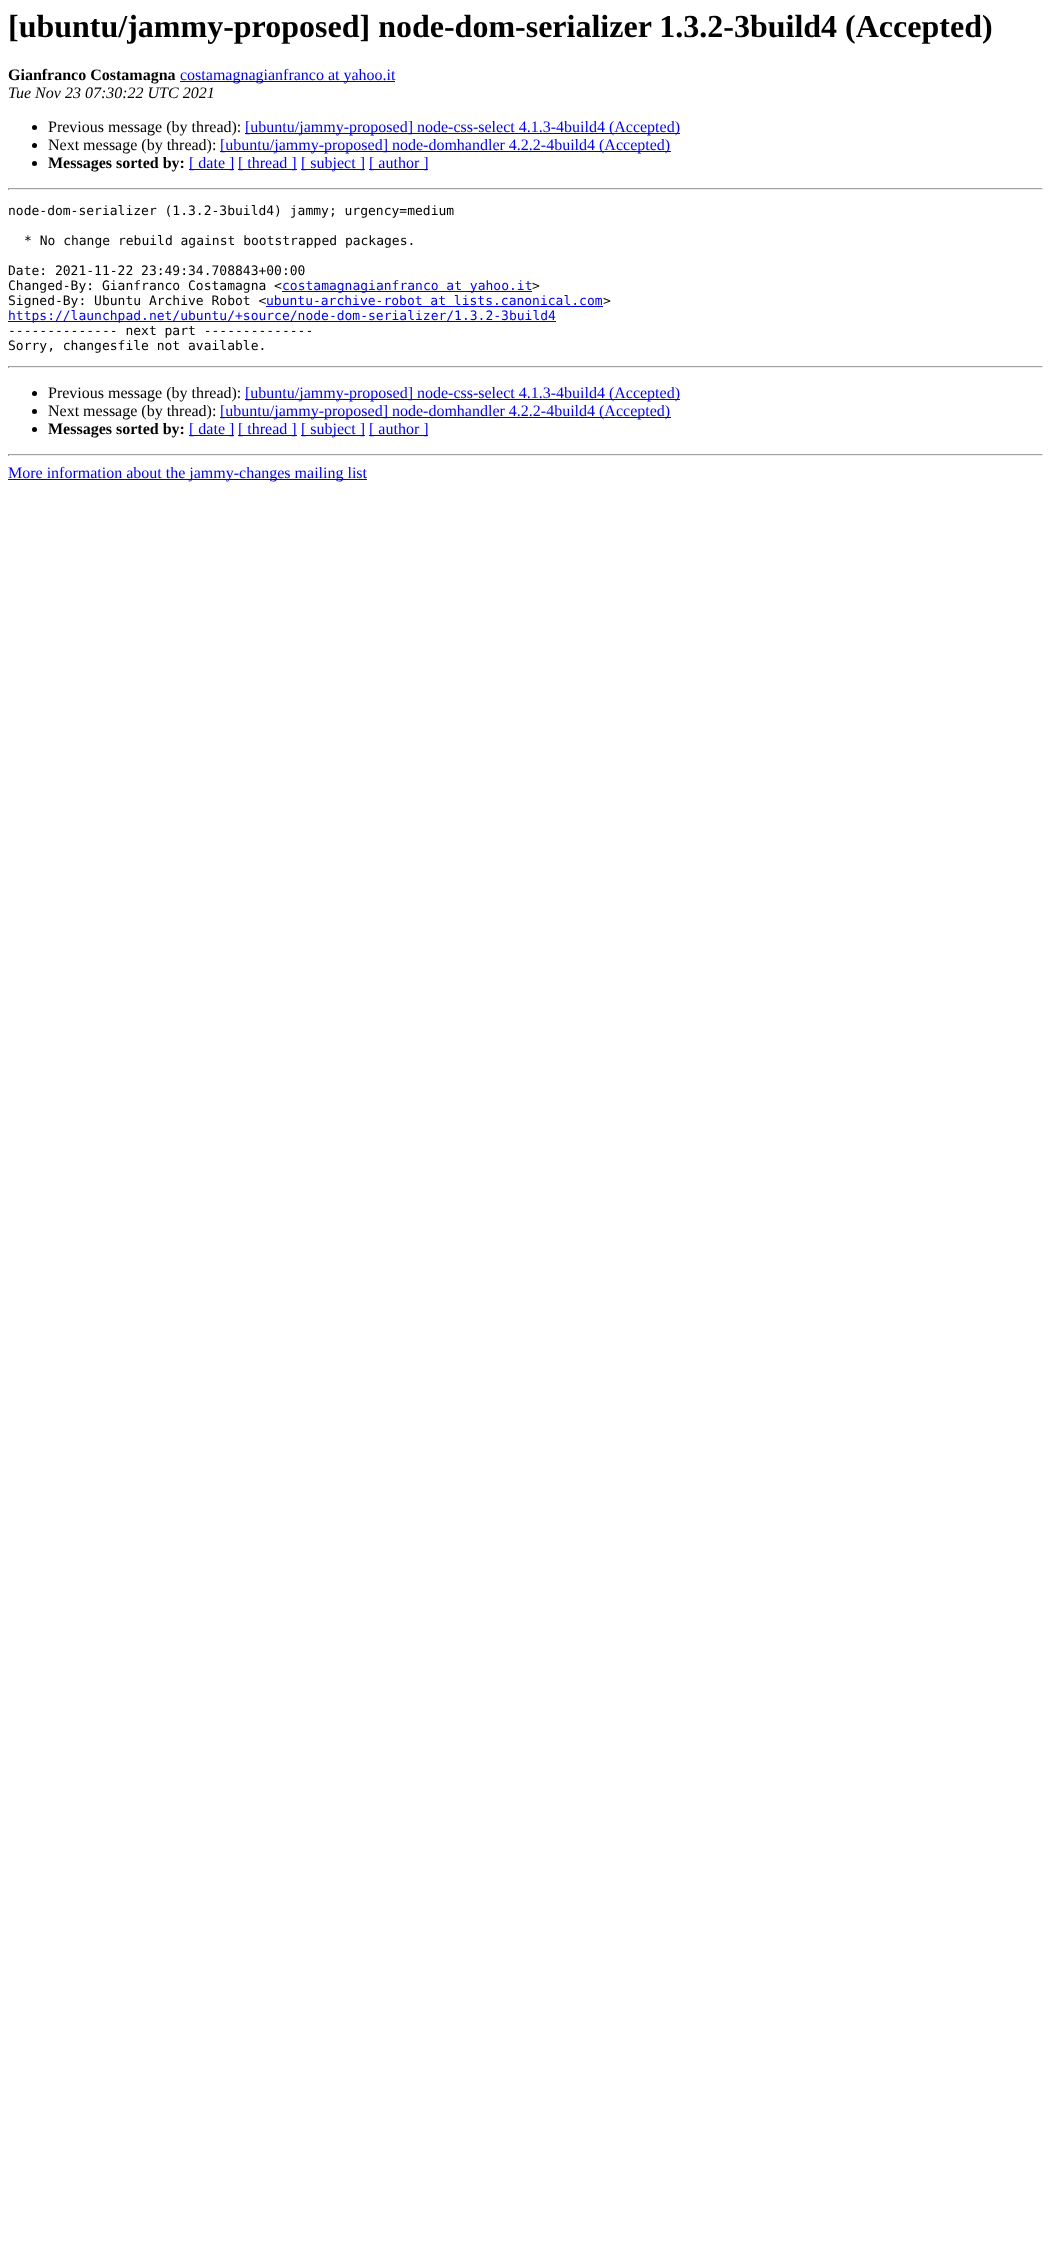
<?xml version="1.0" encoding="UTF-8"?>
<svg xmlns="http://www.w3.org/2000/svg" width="1051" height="2242">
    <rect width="100%" height="100%" fill="#FFFFFF"/>
    <text x="8" y="37" font-family="Liberation Serif" font-size="32" font-weight="700" fill="#000000">[ubuntu/jammy-proposed] node-dom-serializer 1.3.2-3build4 (Accepted)</text>
    <text x="8" y="80" font-family="Liberation Serif" font-size="16" font-weight="700" fill="#000000">Gianfranco Costamagna</text>
    <rect x="180" y="81" width="215" height="1" fill="#0000EE"/>
    <text x="180" y="80" font-family="Liberation Serif" font-size="16" fill="#0000EE">costamagnagianfranco at yahoo.it</text>
    <text x="8" y="98" font-family="Liberation Serif" font-size="16" font-style="italic" fill="#000000">Tue Nov 23 07:30:22 UTC 2021</text>
    <circle cx="34.5" cy="127.5" r="2.5" fill="#000000"/>
    <text x="48" y="132" font-family="Liberation Serif" font-size="16" fill="#000000">Previous message (by thread):</text>
    <rect x="245" y="133" width="435" height="1" fill="#0000EE"/>
    <text x="245" y="132" font-family="Liberation Serif" font-size="16" fill="#0000EE">[ubuntu/jammy-proposed] node-css-select 4.1.3-4build4 (Accepted)</text>
    <circle cx="34.5" cy="145.5" r="2.5" fill="#000000"/>
    <text x="48" y="150" font-family="Liberation Serif" font-size="16" fill="#000000">Next message (by thread):</text>
    <rect x="220" y="151" width="451" height="1" fill="#0000EE"/>
    <text x="220" y="150" font-family="Liberation Serif" font-size="16" fill="#0000EE">[ubuntu/jammy-proposed] node-domhandler 4.2.2-4build4 (Accepted)</text>
    <circle cx="34.5" cy="163.5" r="2.5" fill="#000000"/>
    <text x="48" y="168" font-family="Liberation Serif" font-size="16" font-weight="700" fill="#000000">Messages sorted by:</text>
    <rect x="189" y="169" width="45" height="1" fill="#0000EE"/>
    <text x="189" y="168" font-family="Liberation Serif" font-size="16" fill="#0000EE">[ date ]</text>
    <rect x="238" y="169" width="59" height="1" fill="#0000EE"/>
    <text x="238" y="168" font-family="Liberation Serif" font-size="16" fill="#0000EE">[ thread ]</text>
    <rect x="301" y="169" width="64" height="1" fill="#0000EE"/>
    <text x="301" y="168" font-family="Liberation Serif" font-size="16" fill="#0000EE">[ subject ]</text>
    <rect x="369" y="169" width="59" height="1" fill="#0000EE"/>
    <text x="369" y="168" font-family="Liberation Serif" font-size="16" fill="#0000EE">[ author ]</text>
    <rect x="8" y="188" width="1035" height="1" fill="#9F9F9F"/>
    <rect x="1042" y="188" width="1" height="2" fill="#EEEEEE"/>
    <rect x="8" y="189" width="1035" height="1" fill="#EEEEEE"/>
    <rect x="8" y="188" width="1" height="2" fill="#9F9F9F"/>
    <text x="8" y="215" font-family="DejaVu Sans Mono" font-size="13" fill="#000000">node-dom-serializer (1.3.2-3build4) jammy; urgency=medium</text>
    <text x="24" y="245" font-family="DejaVu Sans Mono" font-size="13" fill="#000000">* No change rebuild against bootstrapped packages.</text>
    <text font-family="DejaVu Sans Mono" font-size="13" fill="#000000">
        <tspan x="8" y="275">Date: 2021-11-22 23:49:34.708843+00:00</tspan>
        <tspan x="8" y="290">Changed-By: Gianfranco Costamagna &lt;</tspan>
    </text>
    <rect x="282" y="291" width="250" height="1" fill="#0000EE"/>
    <text x="282" y="290" font-family="DejaVu Sans Mono" font-size="13" fill="#0000EE">costamagnagianfranco at yahoo.it</text>
    <text x="532" y="290" font-family="DejaVu Sans Mono" font-size="13" fill="#000000">&gt;</text>
    <text x="8" y="305" font-family="DejaVu Sans Mono" font-size="13" fill="#000000">Signed-By: Ubuntu Archive Robot &lt;</text>
    <text x="266" y="305" font-family="DejaVu Sans Mono" font-size="13" fill="#0000EE">ubuntu-archive-robot at lists.canonical.com</text>
    <rect x="266" y="306" width="337" height="1" fill="#0000EE"/>
    <text x="603" y="305" font-family="DejaVu Sans Mono" font-size="13" fill="#000000">&gt;</text>
    <rect x="8" y="321" width="548" height="1" fill="#0000EE"/>
    <text x="8" y="320" font-family="DejaVu Sans Mono" font-size="13" fill="#0000EE">https://launchpad.net/ubuntu/+source/node-dom-serializer/1.3.2-3build4</text>
    <text font-family="DejaVu Sans Mono" font-size="13" fill="#000000">
        <tspan x="8" y="335">-------------- next part --------------</tspan>
        <tspan x="8" y="350">Sorry, changesfile not available.</tspan>
    </text>
    <rect x="8" y="366" width="1035" height="1" fill="#9F9F9F"/>
    <rect x="1042" y="366" width="1" height="2" fill="#EEEEEE"/>
    <rect x="8" y="367" width="1035" height="1" fill="#EEEEEE"/>
    <rect x="8" y="366" width="1" height="2" fill="#9F9F9F"/>
    <circle cx="34.5" cy="393.5" r="2.5" fill="#000000"/>
    <text x="48" y="398" font-family="Liberation Serif" font-size="16" fill="#000000">Previous message (by thread):</text>
    <rect x="245" y="399" width="435" height="1" fill="#0000EE"/>
    <text x="245" y="398" font-family="Liberation Serif" font-size="16" fill="#0000EE">[ubuntu/jammy-proposed] node-css-select 4.1.3-4build4 (Accepted)</text>
    <circle cx="34.5" cy="411.5" r="2.5" fill="#000000"/>
    <text x="48" y="416" font-family="Liberation Serif" font-size="16" fill="#000000">Next message (by thread):</text>
    <rect x="220" y="417" width="451" height="1" fill="#0000EE"/>
    <text x="220" y="416" font-family="Liberation Serif" font-size="16" fill="#0000EE">[ubuntu/jammy-proposed] node-domhandler 4.2.2-4build4 (Accepted)</text>
    <circle cx="34.5" cy="429.5" r="2.5" fill="#000000"/>
    <text x="48" y="434" font-family="Liberation Serif" font-size="16" font-weight="700" fill="#000000">Messages sorted by:</text>
    <rect x="189" y="435" width="45" height="1" fill="#0000EE"/>
    <text x="189" y="434" font-family="Liberation Serif" font-size="16" fill="#0000EE">[ date ]</text>
    <rect x="238" y="435" width="59" height="1" fill="#0000EE"/>
    <text x="238" y="434" font-family="Liberation Serif" font-size="16" fill="#0000EE">[ thread ]</text>
    <rect x="301" y="435" width="64" height="1" fill="#0000EE"/>
    <text x="301" y="434" font-family="Liberation Serif" font-size="16" fill="#0000EE">[ subject ]</text>
    <rect x="369" y="435" width="59" height="1" fill="#0000EE"/>
    <text x="369" y="434" font-family="Liberation Serif" font-size="16" fill="#0000EE">[ author ]</text>
    <rect x="8" y="454" width="1035" height="1" fill="#9F9F9F"/>
    <rect x="1042" y="454" width="1" height="2" fill="#EEEEEE"/>
    <rect x="8" y="455" width="1035" height="1" fill="#EEEEEE"/>
    <rect x="8" y="454" width="1" height="2" fill="#9F9F9F"/>
    <rect x="8" y="479" width="359" height="1" fill="#0000EE"/>
    <text x="8" y="478" font-family="Liberation Serif" font-size="16" fill="#0000EE">More information about the jammy-changes mailing list</text>
</svg>
